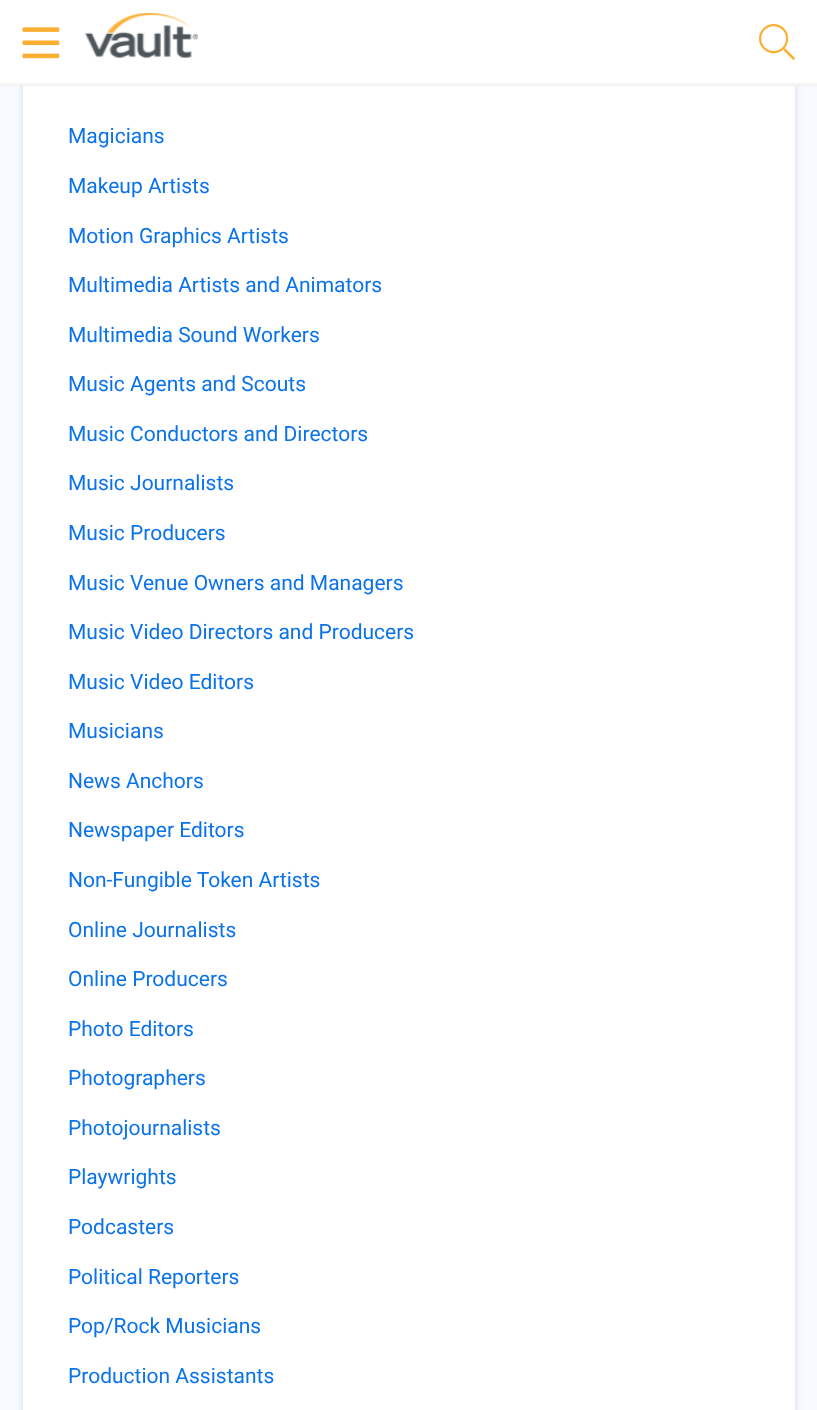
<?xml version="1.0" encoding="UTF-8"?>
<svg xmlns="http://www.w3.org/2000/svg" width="817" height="1410">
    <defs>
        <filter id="blur1" x="-50%" y="-200%" width="200%" height="500%"><feGaussianBlur stdDeviation="3"/></filter>
    </defs>
    <rect width="100%" height="100%" fill="#F7FBFF"/>
    <rect x="23" y="-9" width="772" height="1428" fill="#000000" fill-opacity="0.15" filter="url(#blur1)"/>
    <rect x="0" y="0" width="817" height="83" fill="#FFFFFF"/>
    <rect x="0" y="85" width="817" height="1" fill="#F0F1F1"/>
    <rect x="0" y="83" width="817" height="2" fill="#F6F6F5"/>
    <image x="22" y="27" width="38" height="32" href="img_01.png"/>
    <image x="85" y="13" width="113" height="45" href="img_02.png"/>
    <image x="759" y="24" width="36" height="36" href="img_03.png"/>
    <rect x="23" y="86" width="772" height="1324" fill="#FFFFFF"/>
    <text x="68" y="143" font-family="Roboto" font-size="21" fill="#0A73EB">Magicians</text>
    <text x="68" y="193" font-family="Roboto" font-size="21" fill="#0A73EB">Makeup Artists</text>
    <text x="68" y="243" font-family="Roboto" font-size="21" fill="#0A73EB">Motion Graphics Artists</text>
    <text x="68" y="292" font-family="Roboto" font-size="21" fill="#0A73EB">Multimedia Artists and Animators</text>
    <text x="68" y="342" font-family="Roboto" font-size="21" fill="#0A73EB">Multimedia Sound Workers</text>
    <text x="68" y="391" font-family="Roboto" font-size="21" fill="#0A73EB">Music Agents and Scouts</text>
    <text x="68" y="441" font-family="Roboto" font-size="21" fill="#0A73EB">Music Conductors and Directors</text>
    <text x="68" y="490" font-family="Roboto" font-size="21" fill="#0A73EB">Music Journalists</text>
    <text x="68" y="540" font-family="Roboto" font-size="21" fill="#0A73EB">Music Producers</text>
    <text x="68" y="590" font-family="Roboto" font-size="21" fill="#0A73EB">Music Venue Owners and Managers</text>
    <text x="68" y="639" font-family="Roboto" font-size="21" fill="#0A73EB">Music Video Directors and Producers</text>
    <text x="68" y="689" font-family="Roboto" font-size="21" fill="#0A73EB">Music Video Editors</text>
    <text x="68" y="738" font-family="Roboto" font-size="21" fill="#0A73EB">Musicians</text>
    <text x="68" y="788" font-family="Roboto" font-size="21" fill="#0A73EB">News Anchors</text>
    <text x="68" y="837" font-family="Roboto" font-size="21" fill="#0A73EB">Newspaper Editors</text>
    <text x="68" y="887" font-family="Roboto" font-size="21" fill="#0A73EB">Non-Fungible Token Artists</text>
    <text x="68" y="937" font-family="Roboto" font-size="21" fill="#0A73EB">Online Journalists</text>
    <text x="68" y="986" font-family="Roboto" font-size="21" fill="#0A73EB">Online Producers</text>
    <text x="68" y="1036" font-family="Roboto" font-size="21" fill="#0A73EB">Photo Editors</text>
    <text x="68" y="1085" font-family="Roboto" font-size="21" fill="#0A73EB">Photographers</text>
    <text x="68" y="1135" font-family="Roboto" font-size="21" fill="#0A73EB">Photojournalists</text>
    <text x="68" y="1184" font-family="Roboto" font-size="21" fill="#0A73EB">Playwrights</text>
    <text x="68" y="1234" font-family="Roboto" font-size="21" fill="#0A73EB">Podcasters</text>
    <text x="68" y="1284" font-family="Roboto" font-size="21" fill="#0A73EB">Political Reporters</text>
    <text x="68" y="1333" font-family="Roboto" font-size="21" fill="#0A73EB">Pop/Rock Musicians</text>
    <text x="68" y="1383" font-family="Roboto" font-size="21" fill="#0A73EB">Production Assistants</text>
</svg>
